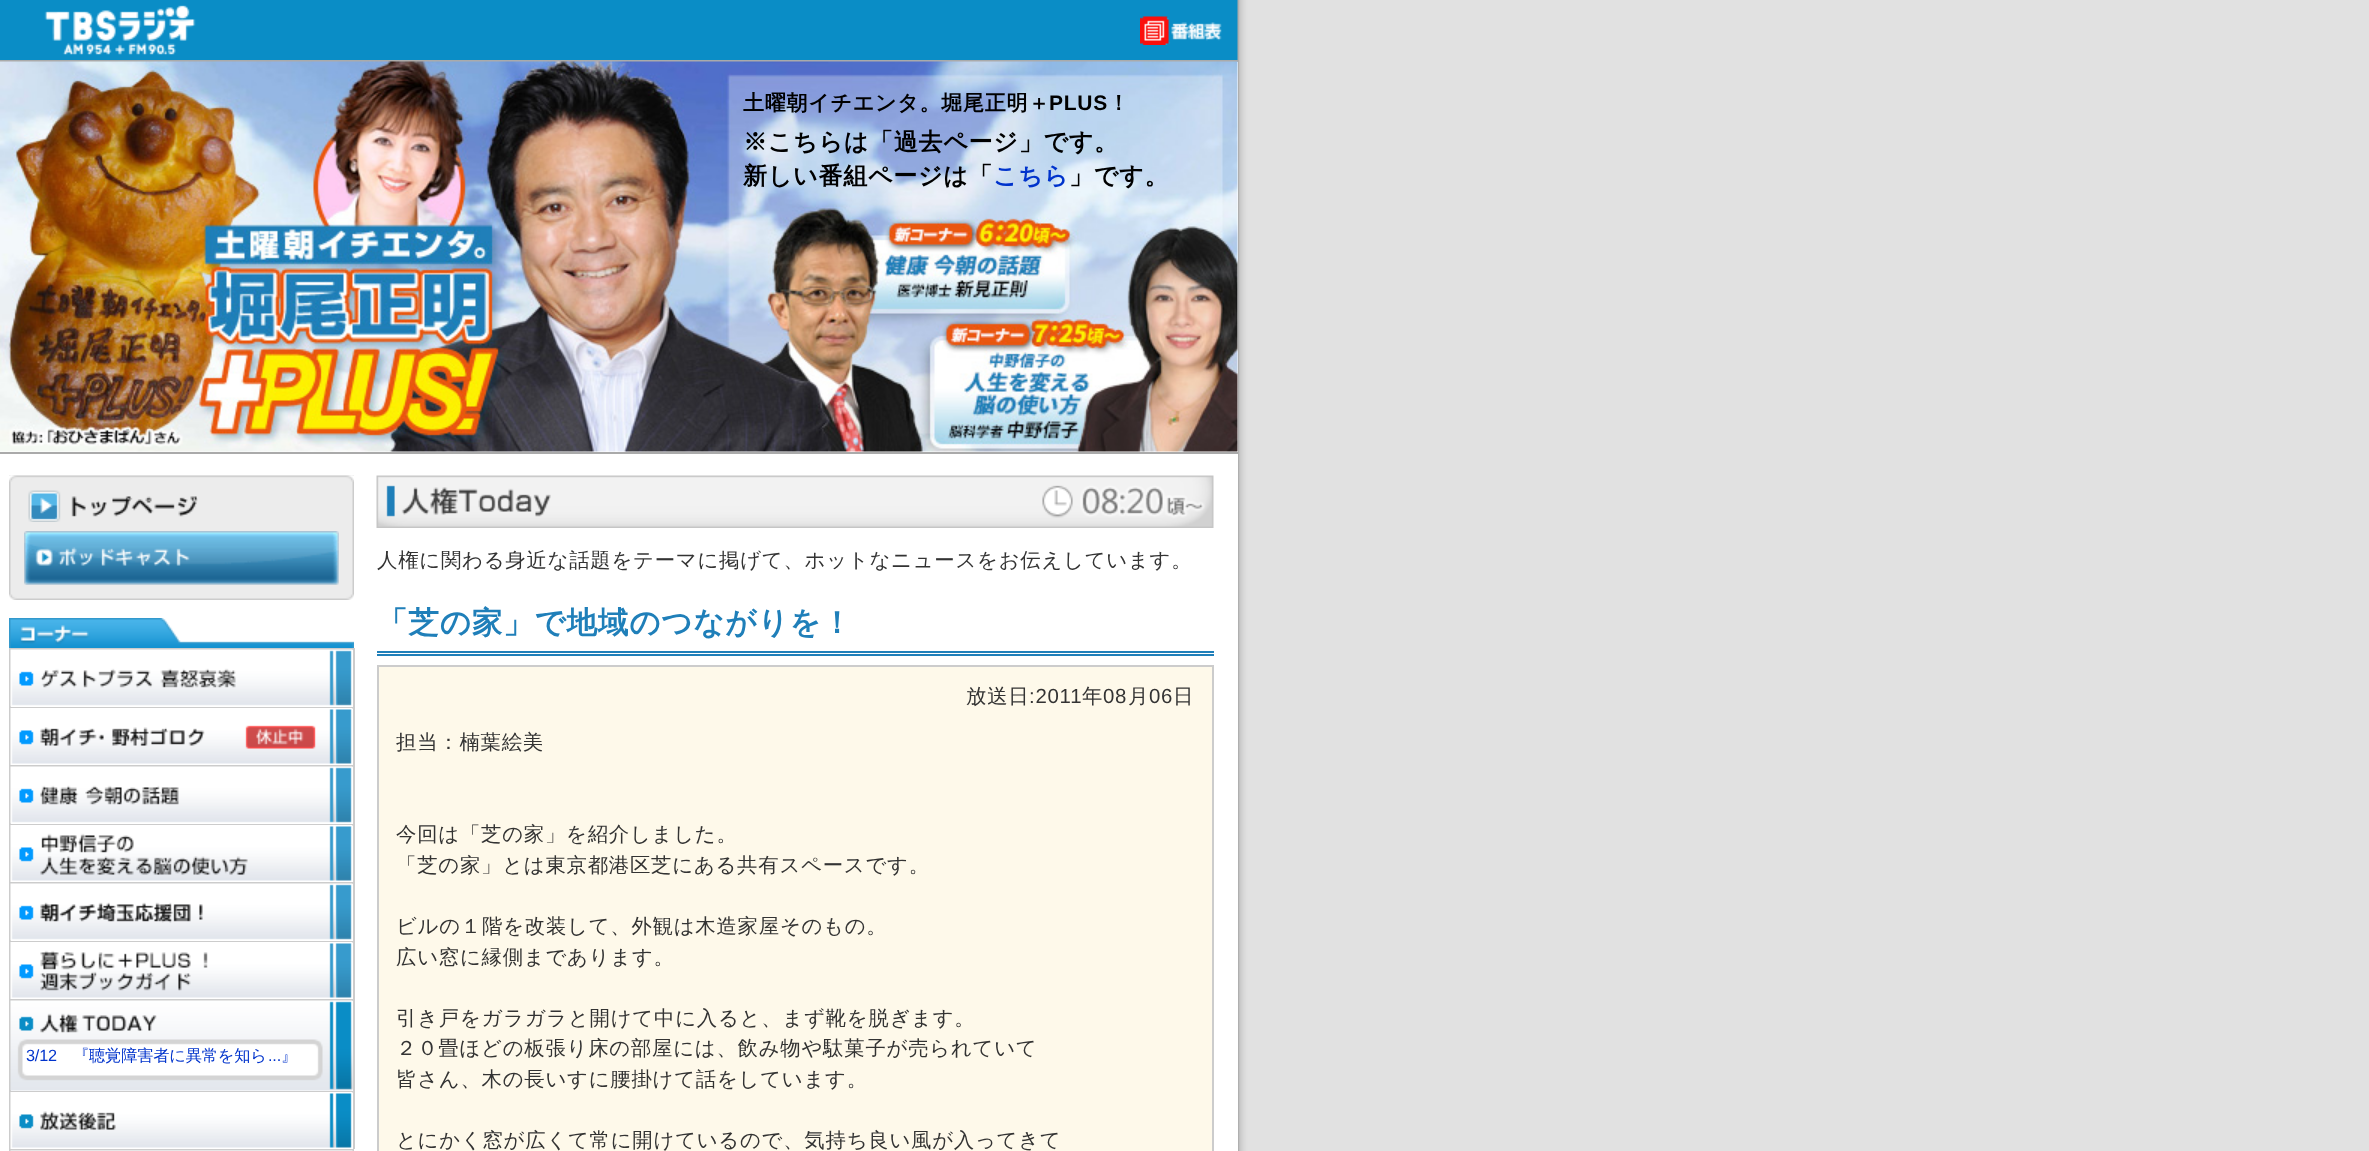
<?xml version="1.0" encoding="UTF-8"?>
<svg xmlns="http://www.w3.org/2000/svg" width="2369" height="1151">
    <rect width="100%" height="100%" fill="#FFFFFF"/>
    <image x="0" y="0" width="2369" height="1151" href="img_01.png"/>
    <rect x="0" y="60" width="1238" height="2" fill="#AAAAAA"/>
    <image x="44" y="5" width="152" height="50" href="img_02.png"/>
    <image x="1140" y="16" width="82" height="29" href="img_03.png"/>
    <rect x="0" y="62" width="1238" height="1089" fill="#FFFFFF"/>
    <image x="0" y="61" width="1238" height="391" href="img_04.png"/>
    <text x="743" y="110" font-family="WenQuanYi Zen Hei" font-size="21" font-weight="700" letter-spacing="0.75" fill="#000000">土曜朝イチエンタ。堀尾正明＋</text>
    <text x="1049" y="110" font-family="Liberation Sans" font-size="21" font-weight="700" letter-spacing="0.75" fill="#000000">PLUS</text>
    <text x="1108" y="110" font-family="WenQuanYi Zen Hei" font-size="21" font-weight="700" letter-spacing="0.75" fill="#000000">！</text>
    <text font-family="WenQuanYi Zen Hei" font-size="24" font-weight="700" letter-spacing="0.75" fill="#000000">
        <tspan x="743" y="150">※こちらは「過去ページ」です。</tspan>
        <tspan x="743" y="184">新しい番組ページは「</tspan>
    </text>
    <text x="993" y="184" font-family="WenQuanYi Zen Hei" font-size="24" font-weight="700" letter-spacing="0.75" fill="#0033CC">こちら</text>
    <text x="1069" y="184" font-family="WenQuanYi Zen Hei" font-size="24" font-weight="700" letter-spacing="0.75" fill="#000000">」です。</text>
    <rect x="0" y="452" width="1238" height="2" fill="#AAAAAA"/>
    <image x="9" y="475" width="345" height="119" href="img_05.png"/>
    <image x="9" y="475" width="345" height="7" href="img_06.png"/>
    <image x="9" y="594" width="345" height="6" href="img_07.png"/>
    <image x="28" y="490" width="170" height="32" href="img_08.png"/>
    <image x="24" y="531" width="315" height="54" href="img_09.png"/>
    <image x="9" y="618" width="345" height="30" href="img_10.png"/>
    <rect x="9" y="648" width="345" height="2" fill="#CCCCCC"/>
    <rect x="9" y="648" width="2" height="59" fill="#CCCCCC"/>
    <rect x="353" y="648" width="2" height="59" fill="#CCCCCC"/>
    <image x="10" y="649" width="343" height="58" href="img_11.png"/>
    <rect x="9" y="707" width="345" height="2" fill="#CCCCCC"/>
    <rect x="9" y="707" width="2" height="58" fill="#CCCCCC"/>
    <rect x="353" y="707" width="2" height="58" fill="#CCCCCC"/>
    <image x="10" y="708" width="343" height="57" href="img_12.png"/>
    <rect x="9" y="765" width="345" height="2" fill="#CCCCCC"/>
    <rect x="9" y="765" width="2" height="59" fill="#CCCCCC"/>
    <rect x="353" y="765" width="2" height="59" fill="#CCCCCC"/>
    <image x="10" y="766" width="343" height="58" href="img_13.png"/>
    <rect x="9" y="824" width="345" height="2" fill="#CCCCCC"/>
    <rect x="9" y="824" width="2" height="58" fill="#CCCCCC"/>
    <rect x="353" y="824" width="2" height="58" fill="#CCCCCC"/>
    <image x="10" y="825" width="343" height="57" href="img_14.png"/>
    <rect x="9" y="882" width="345" height="2" fill="#CCCCCC"/>
    <rect x="9" y="882" width="2" height="59" fill="#CCCCCC"/>
    <rect x="353" y="882" width="2" height="59" fill="#CCCCCC"/>
    <image x="10" y="883" width="343" height="58" href="img_15.png"/>
    <rect x="9" y="941" width="345" height="2" fill="#CCCCCC"/>
    <rect x="9" y="941" width="2" height="58" fill="#CCCCCC"/>
    <rect x="353" y="941" width="2" height="58" fill="#CCCCCC"/>
    <image x="10" y="942" width="343" height="57" href="img_16.png"/>
    <rect x="9" y="999" width="345" height="2" fill="#CCCCCC"/>
    <rect x="9" y="999" width="2" height="92" fill="#CCCCCC"/>
    <rect x="353" y="999" width="2" height="92" fill="#CCCCCC"/>
    <image x="10" y="1000" width="343" height="91" href="img_17.png"/>
    <text x="26" y="1061" font-family="Liberation Sans" font-size="16.25" letter-spacing="-0.2" fill="#0033CC">3/12</text>
    <text x="73" y="1061" font-family="WenQuanYi Zen Hei" font-size="16.25" font-weight="500" letter-spacing="-0.2" fill="#0033CC">『聴覚障害者に異常を知ら</text>
    <text x="268" y="1061" font-family="Liberation Sans" font-size="16.25" letter-spacing="-0.2" fill="#0033CC">...</text>
    <text x="281" y="1061" font-family="WenQuanYi Zen Hei" font-size="16.25" font-weight="500" letter-spacing="-0.2" fill="#0033CC">』</text>
    <rect x="9" y="1091" width="345" height="2" fill="#CCCCCC"/>
    <rect x="9" y="1091" width="2" height="58" fill="#CCCCCC"/>
    <rect x="353" y="1091" width="2" height="58" fill="#CCCCCC"/>
    <image x="10" y="1092" width="343" height="57" href="img_18.png"/>
    <rect x="10" y="1150" width="343" height="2" fill="none" stroke="#CCCCCC" stroke-width="2"/>
    <image x="10" y="1150" width="343" height="1" href="img_19.png"/>
    <image x="376" y="475" width="838" height="53" href="img_20.png"/>
    <text x="377" y="567" font-family="WenQuanYi Zen Hei" font-size="20.4" font-weight="500" letter-spacing="0.75" fill="#333333">人権に関わる身近な話題をテーマに掲げて、ホットなニュースをお伝えしています。</text>
    <rect x="377" y="651" width="837" height="2" fill="#1F7FB9"/>
    <rect x="377" y="654" width="837" height="2" fill="#1F7FB9"/>
    <text x="377" y="633" font-family="WenQuanYi Zen Hei" font-size="30.6" font-weight="700" letter-spacing="0.75" fill="#1F7FB9">「芝の家」で地域のつながりを！</text>
    <rect x="378" y="666" width="835" height="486" fill="#FEF9EA" stroke="#CCCCCC" stroke-width="2"/>
    <text x="966" y="703" font-family="WenQuanYi Zen Hei" font-size="20.4" font-weight="500" letter-spacing="0.75" fill="#333333">放送日</text>
    <text x="1029" y="703" font-family="Liberation Sans" font-size="20.4" letter-spacing="0.75" fill="#333333">:2011</text>
    <text x="1082" y="703" font-family="WenQuanYi Zen Hei" font-size="20.4" font-weight="500" letter-spacing="0.75" fill="#333333">年</text>
    <text x="1103" y="703" font-family="Liberation Sans" font-size="20.4" letter-spacing="0.75" fill="#333333">08</text>
    <text x="1128" y="703" font-family="WenQuanYi Zen Hei" font-size="20.4" font-weight="500" letter-spacing="0.75" fill="#333333">月</text>
    <text x="1149" y="703" font-family="Liberation Sans" font-size="20.4" letter-spacing="0.75" fill="#333333">06</text>
    <text x="1173" y="703" font-family="WenQuanYi Zen Hei" font-size="20.4" font-weight="500" letter-spacing="0.75" fill="#333333">日</text>
    <text x="396" y="749" font-family="WenQuanYi Zen Hei" font-size="20.4" font-weight="500" letter-spacing="0.75" fill="#333333">担当：楠葉絵美</text>
    <text font-family="WenQuanYi Zen Hei" font-size="20.4" font-weight="500" letter-spacing="0.75" fill="#333333">
        <tspan x="396" y="841">今回は「芝の家」を紹介しました。</tspan>
        <tspan x="396" y="872">「芝の家」とは東京都港区芝にある共有スペースです。</tspan>
    </text>
    <text font-family="WenQuanYi Zen Hei" font-size="20.4" font-weight="500" letter-spacing="0.75" fill="#333333">
        <tspan x="396" y="933">ビルの１階を改装して、外観は木造家屋そのもの。</tspan>
        <tspan x="396" y="964">広い窓に縁側まであります。</tspan>
    </text>
    <text font-family="WenQuanYi Zen Hei" font-size="20.4" font-weight="500" letter-spacing="0.75" fill="#333333">
        <tspan x="396" y="1025">引き戸をガラガラと開けて中に入ると、まず靴を脱ぎます。</tspan>
        <tspan x="396" y="1055">２０畳ほどの板張り床の部屋には、飲み物や駄菓子が売られていて</tspan>
        <tspan x="396" y="1086">皆さん、木の長いすに腰掛けて話をしています。</tspan>
    </text>
    <text x="396" y="1147" font-family="WenQuanYi Zen Hei" font-size="20.4" font-weight="500" letter-spacing="0.75" fill="#333333">とにかく窓が広くて常に開けているので、気持ち良い風が入ってきて</text>
</svg>
